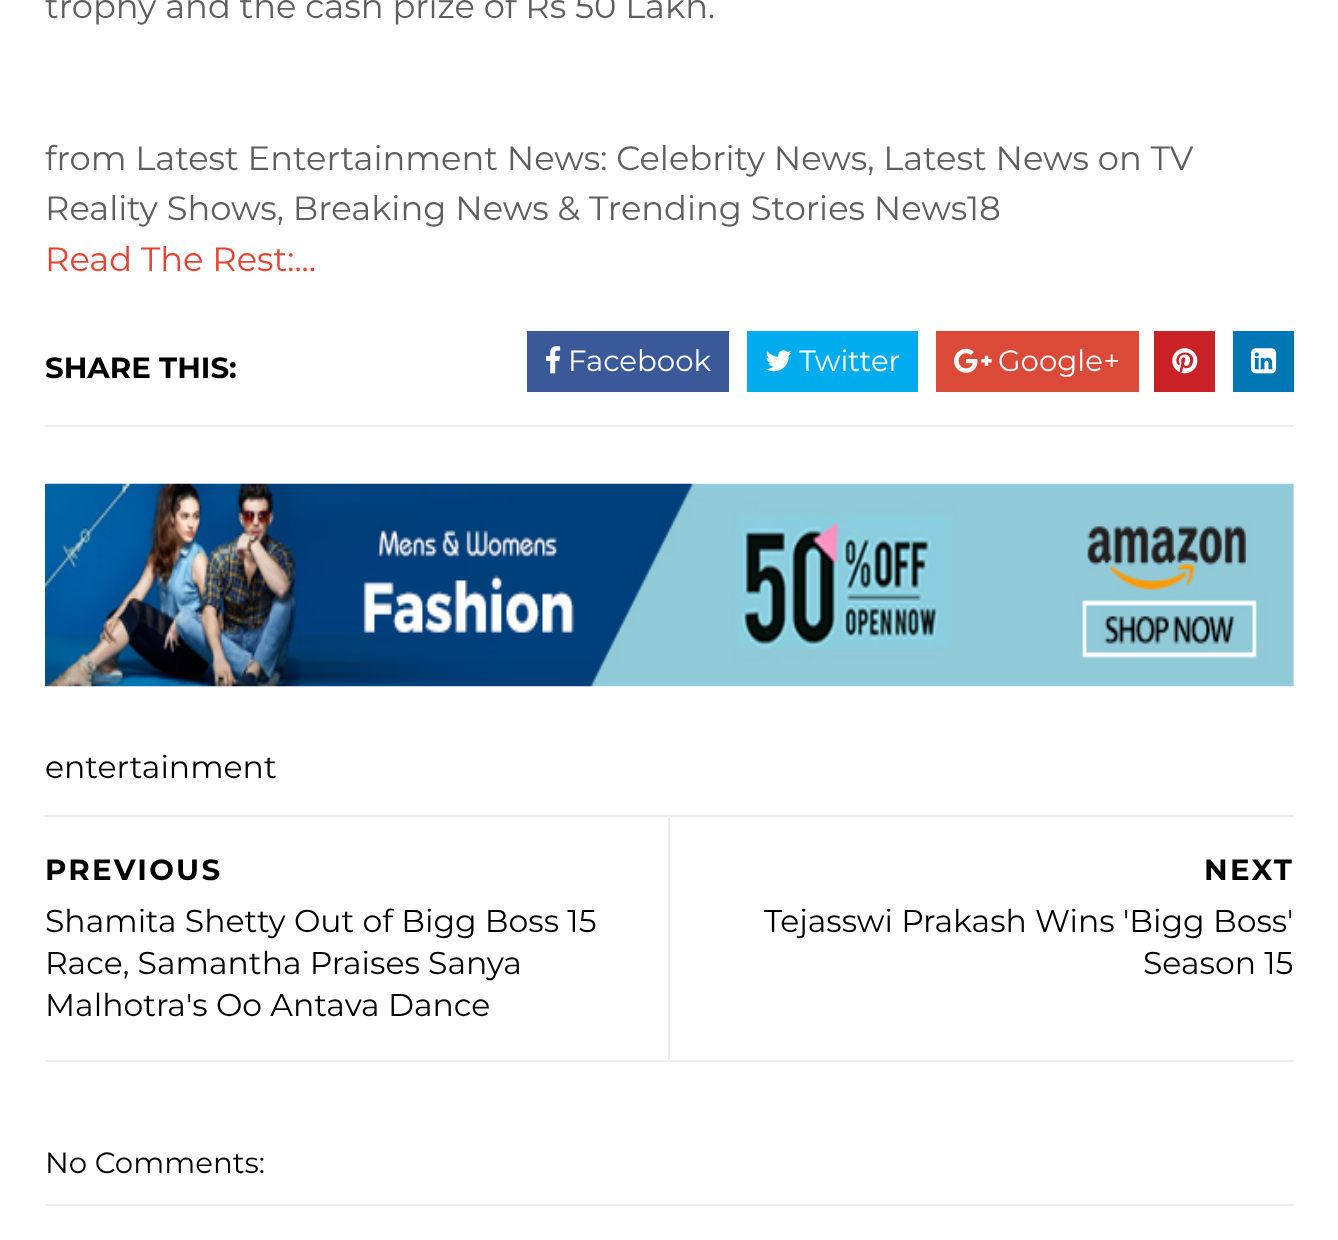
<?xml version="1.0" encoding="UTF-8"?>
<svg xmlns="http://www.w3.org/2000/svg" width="1338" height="1240">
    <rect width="100%" height="100%" fill="#FFFFFF"/>
    <text x="45" y="18" font-family="Montserrat" font-size="33.75" fill="#5E5E5E">trophy and the cash prize of Rs 50 Lakh.</text>
    <text font-family="Montserrat" font-size="33.75" fill="#5E5E5E">
        <tspan x="45" y="170">from Latest Entertainment News: Celebrity News, Latest News on TV</tspan>
        <tspan x="45" y="220">Reality Shows, Breaking News &amp; Trending Stories News18</tspan>
    </text>
    <text x="45" y="271" font-family="Montserrat" font-size="33.75" fill="#E44332">Read The Rest:...</text>
    <rect x="45" y="425" width="1249" height="2" fill="#EEEEEE"/>
    <text x="45" y="378" font-family="Montserrat" font-size="29.25" font-weight="700" fill="#010101">SHARE THIS:</text>
    <rect x="527" y="331" width="202" height="61" fill="#3B5998"/>
    <image x="546" y="346" width="15" height="28" href="img_01.png"/>
    <text x="568" y="371" font-family="Montserrat" font-size="29.25" fill="#FFFFFF">Facebook</text>
    <rect x="747" y="331" width="171" height="61" fill="#00ACEE"/>
    <image x="765" y="350" width="27" height="22" href="img_02.png"/>
    <text x="799" y="371" font-family="Montserrat" font-size="29.25" fill="#FFFFFF">Twitter</text>
    <rect x="936" y="331" width="203" height="61" fill="#DB4A39"/>
    <image x="954" y="348" width="38" height="25" href="img_03.png"/>
    <text x="998" y="371" font-family="Montserrat" font-size="29.25" fill="#FFFFFF">Google+</text>
    <rect x="1154" y="331" width="61" height="61" fill="#CA2127"/>
    <image x="1172" y="348" width="26" height="26" href="img_04.png"/>
    <rect x="1233" y="331" width="61" height="61" fill="#0077B5"/>
    <image x="1251" y="348" width="26" height="26" href="img_05.png"/>
    <image x="45" y="483" width="1249" height="204" href="img_06.png"/>
    <text x="45" y="778" font-family="Montserrat" font-size="31.5" fill="#010101">entertainment</text>
    <rect x="45" y="815" width="1249" height="2" fill="#EEEEEE"/>
    <rect x="45" y="1060" width="1249" height="2" fill="#EEEEEE"/>
    <rect x="668" y="817" width="2" height="243" fill="#EEEEEE"/>
    <text x="45" y="880" font-family="Montserrat" font-size="29.25" font-weight="700" letter-spacing="2.25" fill="#010101">PREVIOUS</text>
    <text font-family="Montserrat" font-size="31.5" fill="#010101">
        <tspan x="45" y="932">Shamita Shetty Out of Bigg Boss 15</tspan>
        <tspan x="45" y="974">Race, Samantha Praises Sanya</tspan>
        <tspan x="45" y="1016">Malhotra's Oo Antava Dance</tspan>
    </text>
    <text x="1204" y="880" font-family="Montserrat" font-size="29.25" font-weight="700" letter-spacing="2.25" fill="#010101">NEXT</text>
    <text x="764" y="932" font-family="Montserrat" font-size="31.5" fill="#010101">Tejasswi Prakash Wins 'Bigg Boss'</text>
    <text x="1143" y="974" font-family="Montserrat" font-size="31.5" fill="#010101">Season 15</text>
    <rect x="45" y="1204" width="1249" height="2" fill="#EEEEEE"/>
    <text x="45" y="1173" font-family="Montserrat" font-size="29.25" fill="#010101">No Comments:</text>
</svg>
